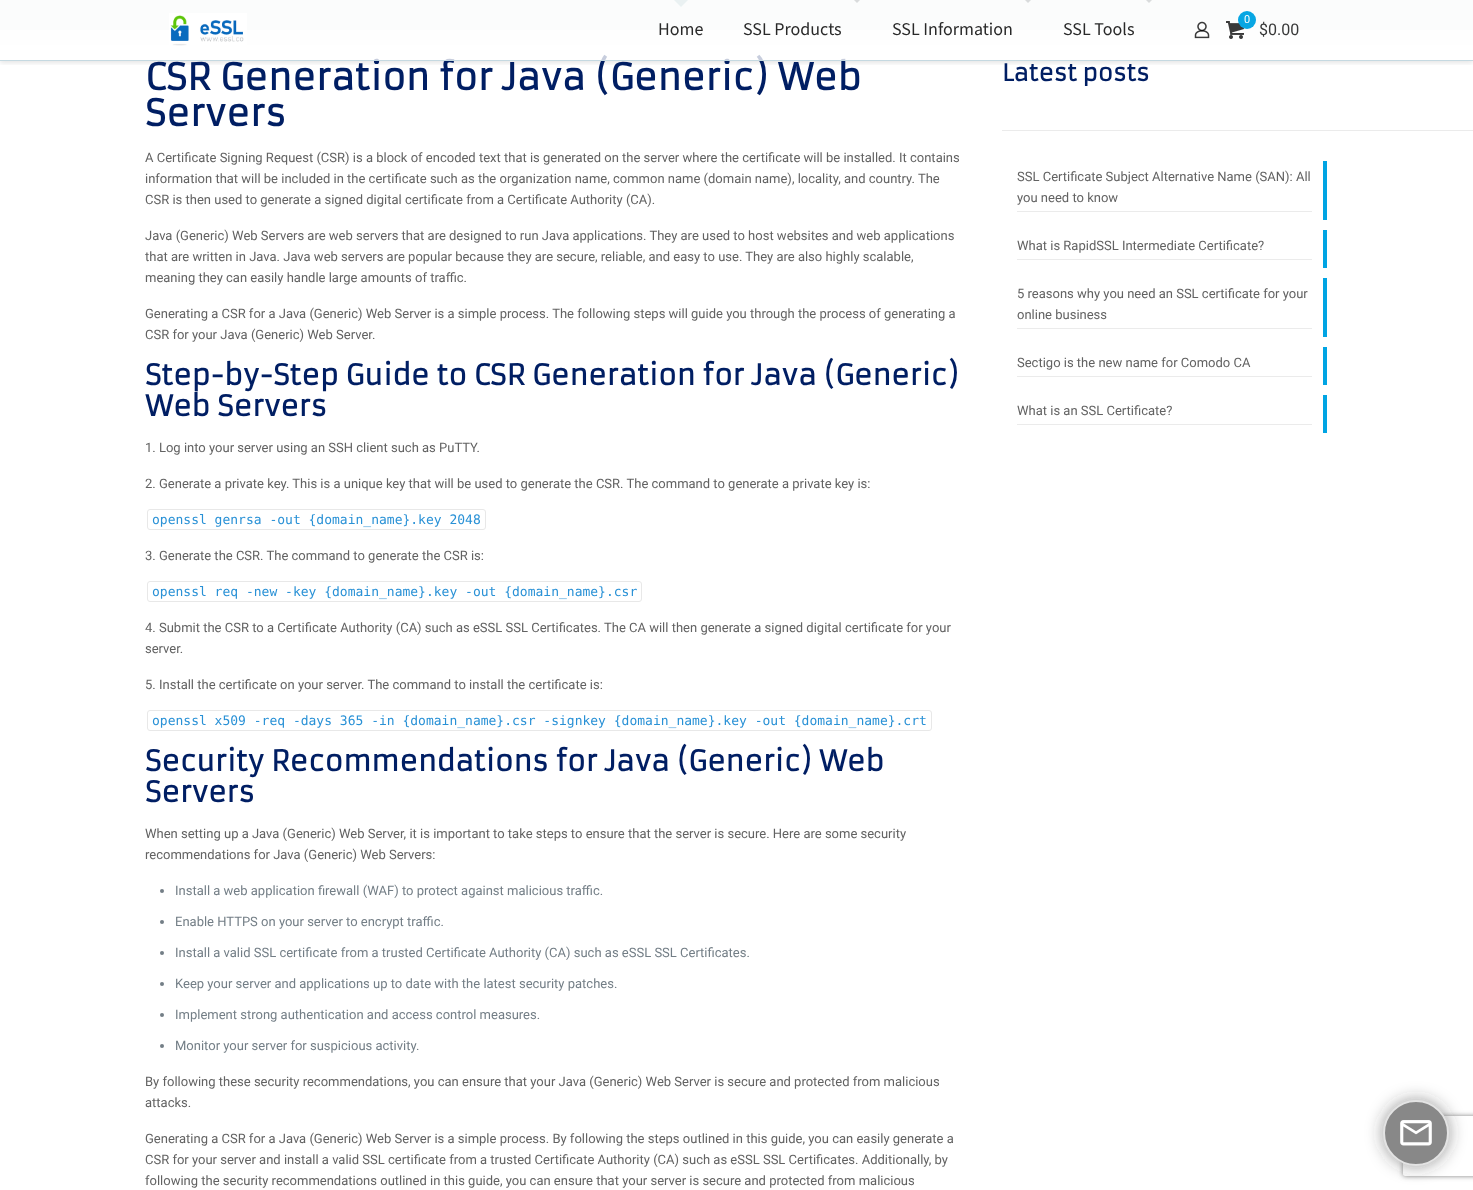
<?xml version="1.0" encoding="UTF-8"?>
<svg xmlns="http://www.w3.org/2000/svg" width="1473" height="1190">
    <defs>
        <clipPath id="clip1"><rect x="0" y="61" width="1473" height="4"/></clipPath>
        <filter id="blur1" x="-50%" y="-200%" width="200%" height="500%"><feGaussianBlur stdDeviation="2.5"/></filter>
        <filter id="blur2" x="-50%" y="-200%" width="200%" height="500%"><feGaussianBlur stdDeviation="8.5"/></filter>
        <clipPath id="clip2"><path d="M 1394 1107 H 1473 V 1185 H 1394 Z M 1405 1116 H 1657 C 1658 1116 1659 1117 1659 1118 V 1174 C 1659 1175 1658 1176 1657 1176 H 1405 C 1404 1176 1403 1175 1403 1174 V 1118 C 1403 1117 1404 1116 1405 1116 Z" clip-rule="evenodd"/></clipPath>
    </defs>
    <rect width="100%" height="100%" fill="#FFFFFF"/>
    <image x="0" y="30" width="1473" height="15" href="img_01.png"/>
    <rect x="0" y="0" width="1473" height="30" fill="#EAF1F2"/>
    <g clip-path="url(#clip1)">
        <rect x="0" y="2" width="1473" height="61" fill="#000000" fill-opacity="0.1" filter="url(#blur1)"/>
    </g>
    <text x="145" y="90" font-family="Armata" font-size="36" font-weight="700" fill="#001E63">CSR Generation for Java (Generic) Web</text>
    <rect x="0" y="0" width="1473" height="61" fill="#FFFFFF" fill-opacity="0.78"/>
    <rect x="0" y="60" width="1473" height="1" fill="#C3D8E0" fill-opacity="0.97"/>
    <image x="169" y="13" width="78" height="33" href="img_02.png"/>
    <path d="M 674 0 H 688 L 681 7 Z" fill="#EAF1F2"/>
    <text x="658" y="35" font-family="'Source Sans 3'" font-size="18" fill="#292929">Home</text>
    <path d="M 852 -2 H 862 L 857 3 Z" fill="#D9DBDC"/>
    <text x="743" y="35" font-family="'Source Sans 3'" font-size="18" fill="#292929">SSL Products</text>
    <path d="M 1023 -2 H 1033 L 1028 3 Z" fill="#D9DBDC"/>
    <text x="892" y="35" font-family="'Source Sans 3'" font-size="18" fill="#292929">SSL Information</text>
    <path d="M 1144 -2 H 1154 L 1149 3 Z" fill="#D9DBDC"/>
    <text x="1063" y="35" font-family="'Source Sans 3'" font-size="18" fill="#292929">SSL Tools</text>
    <image x="1194" y="21" width="16" height="18" href="img_03.png"/>
    <image x="1226" y="21" width="18" height="18" href="img_04.png"/>
    <circle cx="1247" cy="20" r="9" fill="#07A6E3"/>
    <text x="1244" y="23" font-family="Roboto" font-size="11" fill="#FEFFFF">0</text>
    <text x="1259" y="35" font-family="Roboto" font-size="16" fill="#383939">$0.00</text>
    <text x="145" y="126" font-family="Armata" font-size="36" font-weight="700" fill="#001E63">Servers</text>
    <text font-family="Roboto" font-size="13" fill="#626262">
        <tspan x="145" y="162">A Certificate Signing Request (CSR) is a block of encoded text that is generated on the server where the certificate will be installed. It contains</tspan>
        <tspan x="145" y="183">information that will be included in the certificate such as the organization name, common name (domain name), locality, and country. The</tspan>
        <tspan x="145" y="204">CSR is then used to generate a signed digital certificate from a Certificate Authority (CA).</tspan>
    </text>
    <text font-family="Roboto" font-size="13" fill="#626262">
        <tspan x="145" y="240">Java (Generic) Web Servers are web servers that are designed to run Java applications. They are used to host websites and web applications</tspan>
        <tspan x="145" y="261">that are written in Java. Java web servers are popular because they are secure, reliable, and easy to use. They are also highly scalable,</tspan>
        <tspan x="145" y="282">meaning they can easily handle large amounts of traffic.</tspan>
    </text>
    <text font-family="Roboto" font-size="13" fill="#626262">
        <tspan x="145" y="318">Generating a CSR for a Java (Generic) Web Server is a simple process. The following steps will guide you through the process of generating a</tspan>
        <tspan x="145" y="339">CSR for your Java (Generic) Web Server.</tspan>
    </text>
    <text font-family="Armata" font-size="28" font-weight="700" fill="#001E63">
        <tspan x="145" y="385">Step-by-Step Guide to CSR Generation for Java (Generic)</tspan>
        <tspan x="145" y="416">Web Servers</tspan>
    </text>
    <text x="145" y="452" font-family="Roboto" font-size="13" fill="#626262">1. Log into your server using an SSH client such as PuTTY.</text>
    <text x="145" y="488" font-family="Roboto" font-size="13" fill="#626262">2. Generate a private key. This is a unique key that will be used to generate the CSR. The command to generate a private key is:</text>
    <rect x="147.5" y="509.5" width="338" height="20" rx="2.5" fill="none" stroke="#E8E8E8"/>
    <text x="152" y="524" font-family="DejaVu Sans Mono" font-size="13" fill="#2991D6">openssl genrsa -out {domain_name}.key 2048</text>
    <text x="145" y="560" font-family="Roboto" font-size="13" fill="#626262">3. Generate the CSR. The command to generate the CSR is:</text>
    <rect x="147.5" y="581.5" width="494" height="20" rx="2.5" fill="none" stroke="#E8E8E8"/>
    <text x="152" y="596" font-family="DejaVu Sans Mono" font-size="13" fill="#2991D6">openssl req -new -key {domain_name}.key -out {domain_name}.csr</text>
    <text font-family="Roboto" font-size="13" fill="#626262">
        <tspan x="145" y="632">4. Submit the CSR to a Certificate Authority (CA) such as eSSL SSL Certificates. The CA will then generate a signed digital certificate for your</tspan>
        <tspan x="145" y="653">server.</tspan>
    </text>
    <text x="145" y="689" font-family="Roboto" font-size="13" fill="#626262">5. Install the certificate on your server. The command to install the certificate is:</text>
    <rect x="147.5" y="710.5" width="784" height="20" rx="2.5" fill="none" stroke="#E8E8E8"/>
    <text x="152" y="725" font-family="DejaVu Sans Mono" font-size="13" fill="#2991D6">openssl x509 -req -days 365 -in {domain_name}.csr -signkey {domain_name}.key -out {domain_name}.crt</text>
    <text font-family="Armata" font-size="28" font-weight="700" fill="#001E63">
        <tspan x="145" y="771">Security Recommendations for Java (Generic) Web</tspan>
        <tspan x="145" y="802">Servers</tspan>
    </text>
    <text font-family="Roboto" font-size="13" fill="#626262">
        <tspan x="145" y="838">When setting up a Java (Generic) Web Server, it is important to take steps to ensure that the server is secure. Here are some security</tspan>
        <tspan x="145" y="859">recommendations for Java (Generic) Web Servers:</tspan>
    </text>
    <circle cx="162" cy="891" r="2" fill="#737E86"/>
    <text x="175" y="895" font-family="Roboto" font-size="13" fill="#737E86">Install a web application firewall (WAF) to protect against malicious traffic.</text>
    <circle cx="162" cy="922" r="2" fill="#737E86"/>
    <text x="175" y="926" font-family="Roboto" font-size="13" fill="#737E86">Enable HTTPS on your server to encrypt traffic.</text>
    <circle cx="162" cy="953" r="2" fill="#737E86"/>
    <text x="175" y="957" font-family="Roboto" font-size="13" fill="#737E86">Install a valid SSL certificate from a trusted Certificate Authority (CA) such as eSSL SSL Certificates.</text>
    <circle cx="162" cy="984" r="2" fill="#737E86"/>
    <text x="175" y="988" font-family="Roboto" font-size="13" fill="#737E86">Keep your server and applications up to date with the latest security patches.</text>
    <circle cx="162" cy="1015" r="2" fill="#737E86"/>
    <text x="175" y="1019" font-family="Roboto" font-size="13" fill="#737E86">Implement strong authentication and access control measures.</text>
    <circle cx="162" cy="1046" r="2" fill="#737E86"/>
    <text x="175" y="1050" font-family="Roboto" font-size="13" fill="#737E86">Monitor your server for suspicious activity.</text>
    <text font-family="Roboto" font-size="13" fill="#626262">
        <tspan x="145" y="1086">By following these security recommendations, you can ensure that your Java (Generic) Web Server is secure and protected from malicious</tspan>
        <tspan x="145" y="1107">attacks.</tspan>
    </text>
    <text font-family="Roboto" font-size="13" fill="#626262">
        <tspan x="145" y="1143">Generating a CSR for a Java (Generic) Web Server is a simple process. By following the steps outlined in this guide, you can easily generate a</tspan>
        <tspan x="145" y="1164">CSR for your server and install a valid SSL certificate from a trusted Certificate Authority (CA) such as eSSL SSL Certificates. Additionally, by</tspan>
        <tspan x="145" y="1185">following the security recommendations outlined in this guide, you can ensure that your server is secure and protected from malicious</tspan>
    </text>
    <text x="1002" y="81" font-family="Armata" font-size="23" font-weight="700" fill="#001E63">Latest posts</text>
    <rect x="1002" y="130" width="471" height="1" fill="#EBEBEB"/>
    <rect x="1017" y="211" width="295" height="1" fill="#EBEBEB"/>
    <text font-family="Roboto" font-size="13" fill="#626262">
        <tspan x="1017" y="181">SSL Certificate Subject Alternative Name (SAN): All</tspan>
        <tspan x="1017" y="202">you need to know</tspan>
    </text>
    <rect x="1323" y="161" width="4" height="59" fill="#00A4E3"/>
    <rect x="1017" y="259" width="295" height="1" fill="#EBEBEB"/>
    <text x="1017" y="250" font-family="Roboto" font-size="13" fill="#626262">What is RapidSSL Intermediate Certificate?</text>
    <rect x="1323" y="230" width="4" height="38" fill="#00A4E3"/>
    <rect x="1017" y="328" width="295" height="1" fill="#EBEBEB"/>
    <text font-family="Roboto" font-size="13" fill="#626262">
        <tspan x="1017" y="298">5 reasons why you need an SSL certificate for your</tspan>
        <tspan x="1017" y="319">online business</tspan>
    </text>
    <rect x="1323" y="278" width="4" height="59" fill="#00A4E3"/>
    <rect x="1017" y="376" width="295" height="1" fill="#EBEBEB"/>
    <text x="1017" y="367" font-family="Roboto" font-size="13" fill="#626262">Sectigo is the new name for Comodo CA</text>
    <rect x="1323" y="347" width="4" height="38" fill="#00A4E3"/>
    <rect x="1017" y="424" width="295" height="1" fill="#EBEBEB"/>
    <text x="1017" y="415" font-family="Roboto" font-size="13" fill="#626262">What is an SSL Certificate?</text>
    <rect x="1323" y="395" width="4" height="38" fill="#00A4E3"/>
    <rect x="1383" y="1100" width="66" height="66" rx="33" fill="#323232" fill-opacity="0.5" filter="url(#blur2)"/>
    <g clip-path="url(#clip2)">
        <rect x="1403" y="1116" width="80" height="60" rx="2" fill="#808080" filter="url(#blur1)"/>
    </g>
    <circle cx="1416" cy="1133" r="32" fill="#888888" stroke="#E3E3E3" stroke-width="2"/>
    <image x="1400" y="1120" width="32" height="26" href="img_05.png"/>
</svg>
